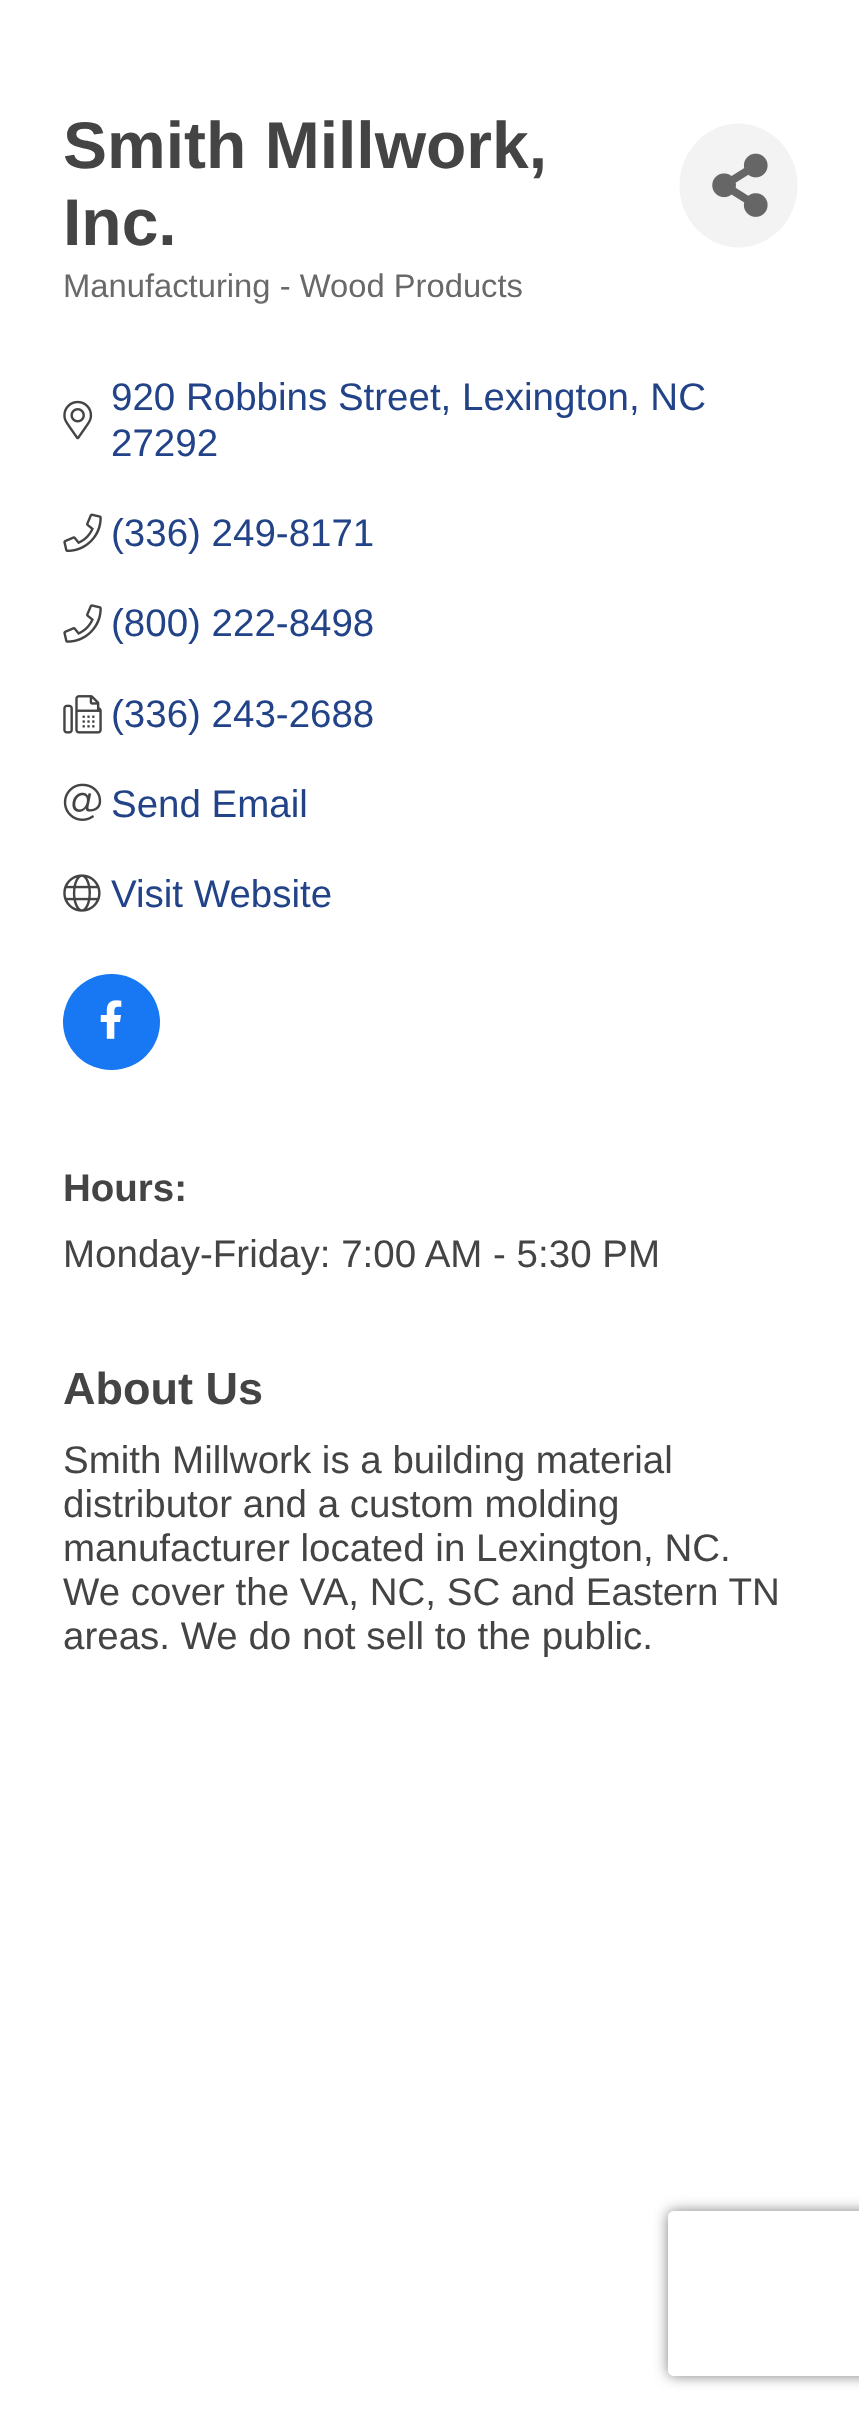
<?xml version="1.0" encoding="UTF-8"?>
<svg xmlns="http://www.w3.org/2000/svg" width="859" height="2413">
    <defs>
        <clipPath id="clip1"><path d="M 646 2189 H 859 V 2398 H 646 Z M 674 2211 H 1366 C 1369.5 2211 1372 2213.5 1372 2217 V 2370 C 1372 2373.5 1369.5 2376 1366 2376 H 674 C 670.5 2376 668 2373.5 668 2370 V 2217 C 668 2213.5 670.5 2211 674 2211 Z" clip-rule="evenodd"/></clipPath>
        <filter id="blur1" x="-50%" y="-200%" width="200%" height="500%"><feGaussianBlur stdDeviation="7"/></filter>
    </defs>
    <rect width="100%" height="100%" fill="#FFFFFF"/>
    <text font-family="Liberation Sans" font-size="66" font-weight="700" fill="#444444">
        <tspan x="63" y="168">Smith Millwork,</tspan>
        <tspan x="63" y="245">Inc.</tspan>
    </text>
    <ellipse cx="738.5" cy="185.5" rx="59" ry="62" fill="#F3F3F3"/>
    <image x="712" y="153" width="56" height="64" href="img_01.png"/>
    <text x="63" y="297" font-family="Liberation Sans" font-size="32.75" fill="#696969">Manufacturing - Wood Products</text>
    <image x="63" y="400" width="30" height="40" href="img_02.png"/>
    <text font-family="Liberation Sans" font-size="38.5" fill="#224388">
        <tspan x="111" y="410">920 Robbins Street, Lexington, NC</tspan>
        <tspan x="111" y="456">27292</tspan>
    </text>
    <image x="63" y="513" width="39" height="40" href="img_03.png"/>
    <text x="111" y="546" font-family="Liberation Sans" font-size="38.5" fill="#224388">(336) 249-8171</text>
    <image x="63" y="604" width="39" height="39" href="img_04.png"/>
    <text x="111" y="636" font-family="Liberation Sans" font-size="38.5" fill="#224388">(800) 222-8498</text>
    <image x="63" y="695" width="39" height="39" href="img_05.png"/>
    <text x="111" y="727" font-family="Liberation Sans" font-size="38.5" fill="#224388">(336) 243-2688</text>
    <image x="63" y="783" width="39" height="38" href="img_06.png"/>
    <text x="111" y="817" font-family="Liberation Sans" font-size="38.5" fill="#224388">Send Email</text>
    <image x="63" y="874" width="38" height="38" href="img_07.png"/>
    <text x="111" y="907" font-family="Liberation Sans" font-size="38.5" fill="#224388">Visit Website</text>
    <rect x="63" y="974" width="97" height="96" rx="48" fill="#1877F2"/>
    <image x="100" y="1000" width="22" height="39" href="img_08.png"/>
    <text x="63" y="1201" font-family="Liberation Sans" font-size="38.5" font-weight="700" fill="#444444">Hours:</text>
    <text x="63" y="1267" font-family="Liberation Sans" font-size="38.5" fill="#444444">Monday-Friday: 7:00 AM - 5:30 PM</text>
    <text x="63" y="1404" font-family="Liberation Sans" font-size="45" font-weight="700" fill="#444444">About Us</text>
    <text font-family="Liberation Sans" font-size="38.5" fill="#444444">
        <tspan x="63" y="1473">Smith Millwork is a building material</tspan>
        <tspan x="63" y="1517">distributor and a custom molding</tspan>
        <tspan x="63" y="1561">manufacturer located in Lexington, NC.</tspan>
        <tspan x="63" y="1605">We cover the VA, NC, SC and Eastern TN</tspan>
        <tspan x="63" y="1649">areas. We do not sell to the public.</tspan>
    </text>
    <g clip-path="url(#clip1)">
        <rect x="668" y="2211" width="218" height="165" rx="6" fill="#808080" filter="url(#blur1)"/>
    </g>
</svg>
